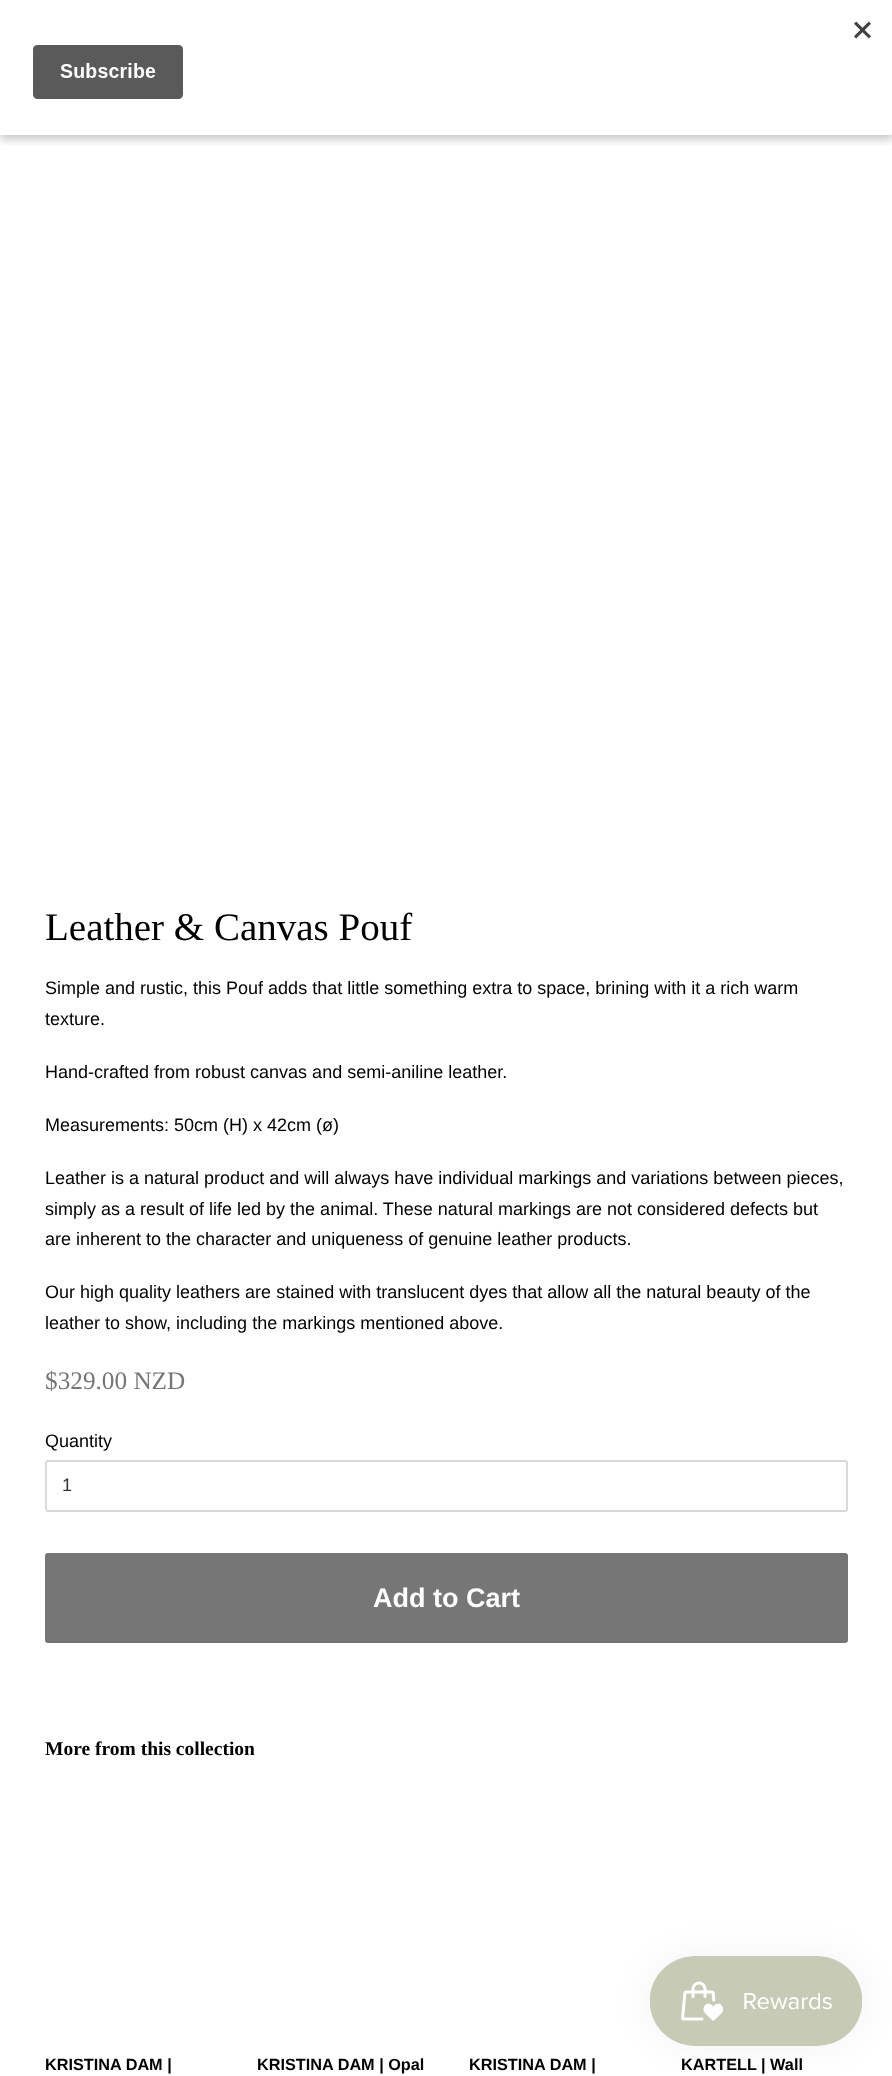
<?xml version="1.0" encoding="UTF-8"?>
<svg xmlns="http://www.w3.org/2000/svg" width="892" height="2076">
    <defs>
        <clipPath id="clip1"><rect x="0" y="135" width="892" height="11"/></clipPath>
        <filter id="blur1" x="-50%" y="-200%" width="200%" height="500%"><feGaussianBlur stdDeviation="4.5"/></filter>
        <filter id="blur2" x="-50%" y="-200%" width="200%" height="500%"><feGaussianBlur stdDeviation="19"/></filter>
    </defs>
    <rect width="100%" height="100%" fill="#FFFFFF"/>
    <g clip-path="url(#clip1)">
        <rect x="0" y="5" width="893" height="135" fill="#000000" fill-opacity="0.2" filter="url(#blur1)"/>
    </g>
    <image x="32" y="21" width="839" height="78" href="img_01.png"/>
    <text x="45" y="940" font-family="Liberation Serif" font-size="39" fill="#000000">Leather &amp; Canvas Pouf</text>
    <text font-family="Liberation Sans" font-size="18" fill="#000000">
        <tspan x="45" y="994">Simple and rustic, this Pouf adds that little something extra to space, brining with it a rich warm</tspan>
        <tspan x="45" y="1025">texture.</tspan>
    </text>
    <text x="45" y="1078" font-family="Liberation Sans" font-size="18" fill="#000000">Hand-crafted from robust canvas and semi-aniline leather.</text>
    <text x="45" y="1131" font-family="Liberation Sans" font-size="18" fill="#000000">Measurements: 50cm (H) x 42cm (ø)</text>
    <text font-family="Liberation Sans" font-size="18" fill="#000000">
        <tspan x="45" y="1184">Leather is a natural product and will always have individual markings and variations between pieces,</tspan>
        <tspan x="45" y="1215">simply as a result of life led by the animal. These natural markings are not considered defects but</tspan>
        <tspan x="45" y="1245">are inherent to the character and uniqueness of genuine leather products.</tspan>
    </text>
    <text font-family="Liberation Sans" font-size="18" fill="#000000">
        <tspan x="45" y="1298">Our high quality leathers are stained with translucent dyes that allow all the natural beauty of the</tspan>
        <tspan x="45" y="1329">leather to show, including the markings mentioned above.</tspan>
    </text>
    <text x="45" y="1389" font-family="Liberation Serif" font-size="25.25" fill="#767676">$329.00 NZD</text>
    <text x="45" y="1447" font-family="Liberation Sans" font-size="18" fill="#000000">Quantity</text>
    <rect x="46" y="1461" width="801" height="50" rx="2" fill="none" stroke="#D9D9D9" stroke-width="2"/>
    <text x="62" y="1491" font-family="Liberation Sans" font-size="18" fill="#333333">1</text>
    <rect x="45" y="1553" width="803" height="90" rx="3" fill="#767676"/>
    <text x="373" y="1607" font-family="Liberation Sans" font-size="27" font-weight="700" fill="#FFFFFF">Add to Cart</text>
    <text x="45" y="1755" font-family="Liberation Serif" font-size="19.5" font-weight="700" fill="#000000">More from this collection</text>
    <text x="45" y="2070" font-family="Liberation Sans" font-size="16.25" font-weight="700" fill="#000000">KRISTINA DAM |</text>
    <text x="257" y="2070" font-family="Liberation Sans" font-size="16.25" font-weight="700" fill="#000000">KRISTINA DAM | Opal</text>
    <text x="469" y="2070" font-family="Liberation Sans" font-size="16.25" font-weight="700" fill="#000000">KRISTINA DAM |</text>
    <text x="681" y="2070" font-family="Liberation Sans" font-size="16.25" font-weight="700" fill="#000000">KARTELL | Wall</text>
    <rect x="650" y="1956" width="213" height="90" rx="45" fill="#000000" fill-opacity="0.05" filter="url(#blur2)"/>
    <image x="649" y="1956" width="213" height="90" href="img_02.png"/>
</svg>
